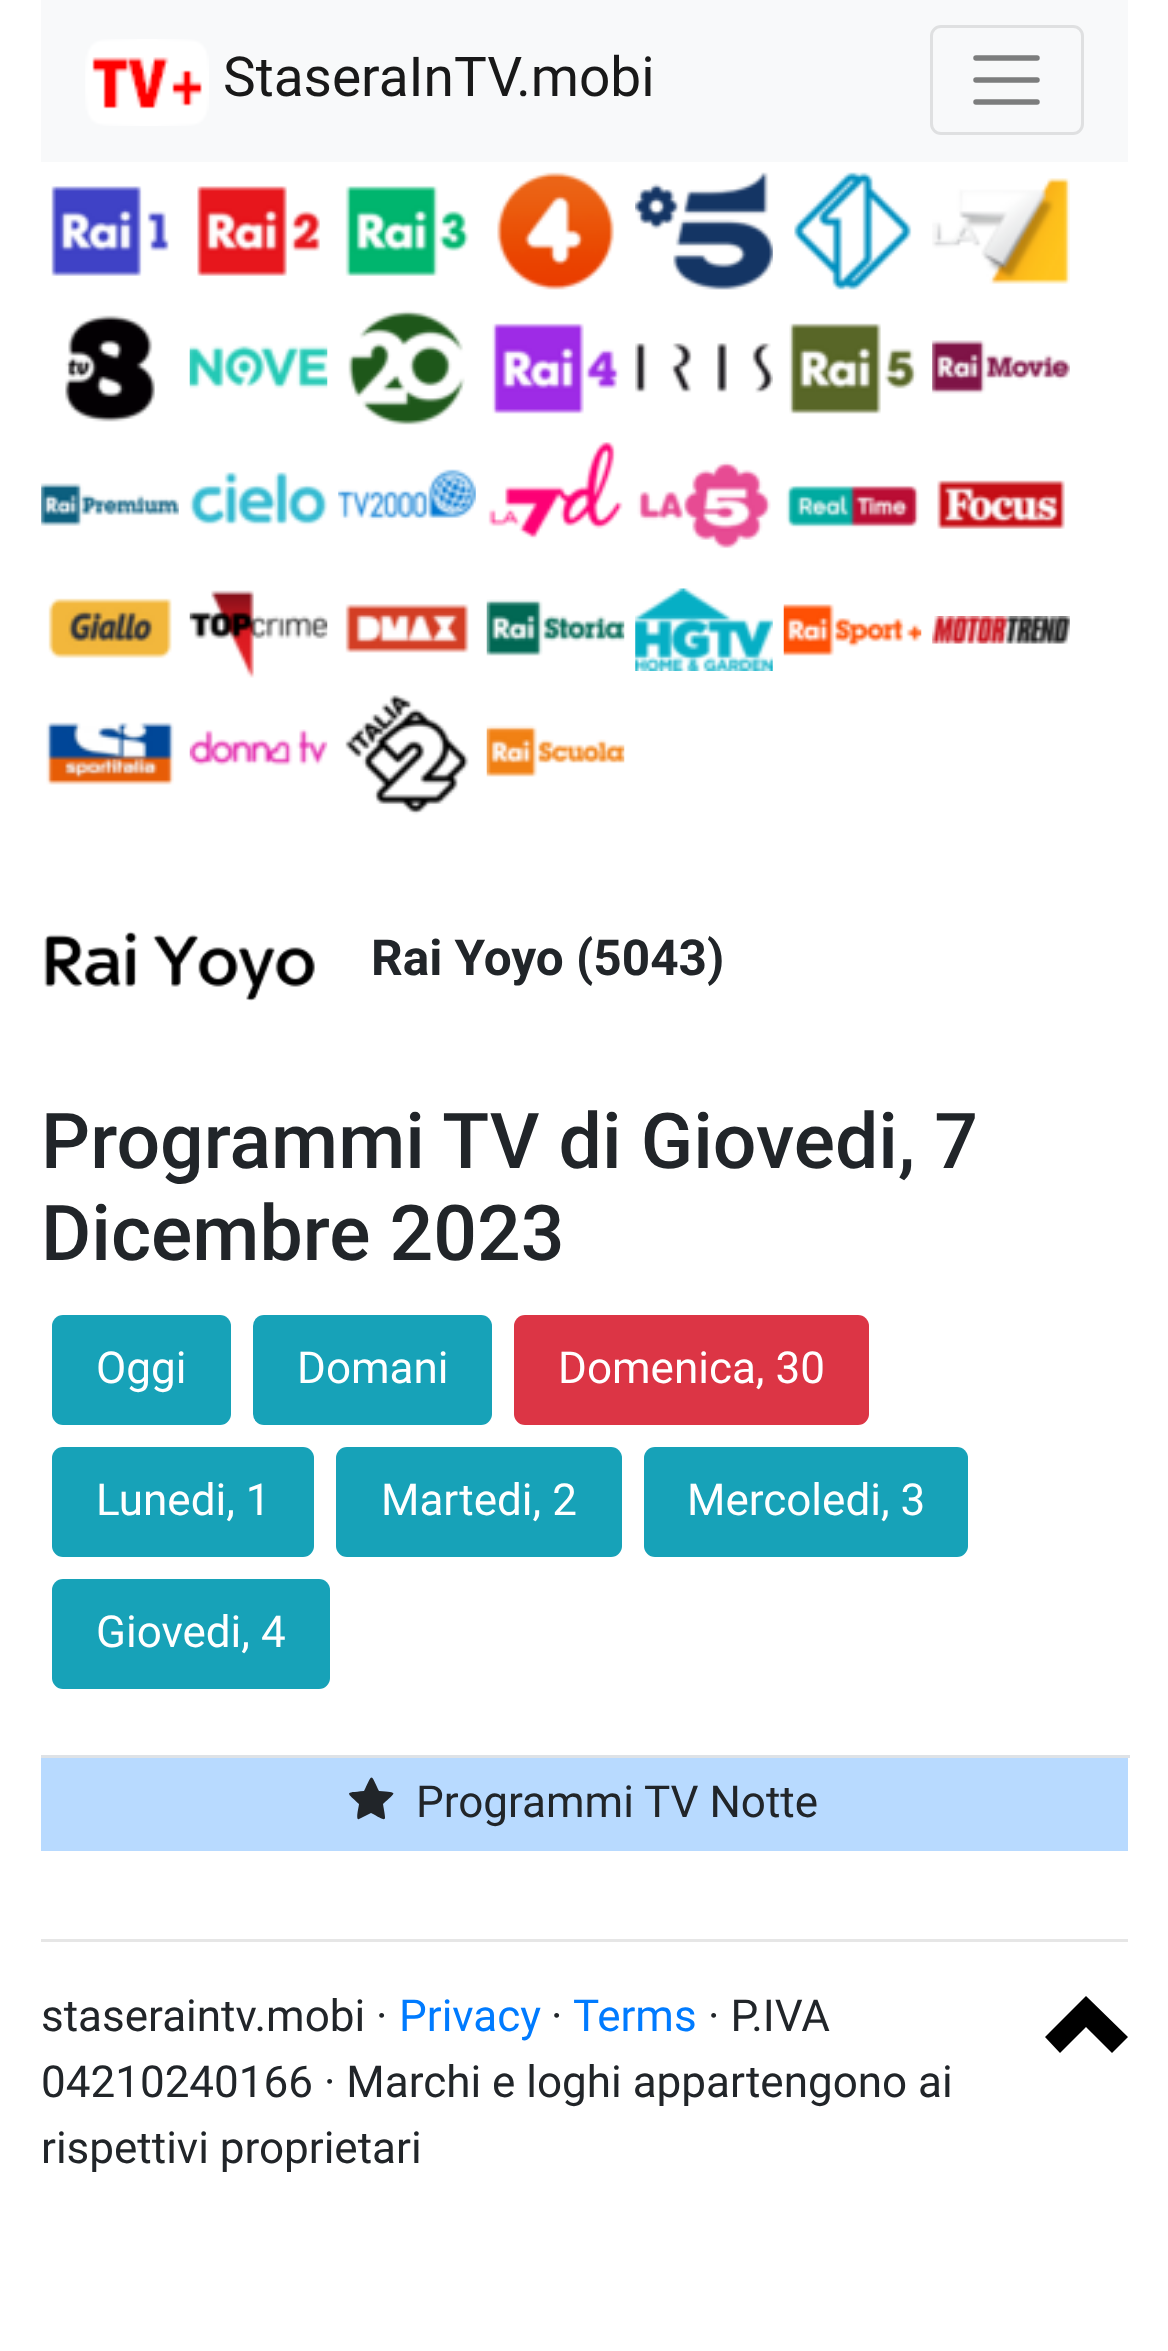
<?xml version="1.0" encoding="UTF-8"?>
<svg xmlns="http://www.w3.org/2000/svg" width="1168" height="2351">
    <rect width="100%" height="100%" fill="#FFFFFF"/>
    <rect x="41" y="0" width="1087" height="162" fill="#F8F9FA"/>
    <image x="85" y="39" width="124" height="87" href="img_01.png"/>
    <text x="223" y="96" font-family="Roboto" font-size="55" fill="#191919">StaseraInTV.mobi</text>
    <rect x="931.5" y="26.5" width="151" height="107" rx="9.5" fill="none" stroke="#DFE0E1" stroke-width="3"/>
    <path d="M 976 58 H 1037 M 976 80 H 1037 M 976 102 H 1037" fill="none" stroke="#7C7D7D" stroke-width="5.5" stroke-linecap="round"/>
    <image x="51" y="186" width="118" height="90" href="img_02.png"/>
    <image x="197" y="186" width="123" height="90" href="img_03.png"/>
    <image x="345" y="186" width="124" height="90" href="img_04.png"/>
    <image x="497" y="172" width="118" height="118" href="img_05.png"/>
    <image x="635" y="172" width="138" height="118" href="img_06.png"/>
    <image x="794" y="172" width="118" height="118" href="img_07.png"/>
    <image x="932" y="178" width="138" height="106" href="img_08.png"/>
    <image x="65" y="315" width="90" height="107" href="img_09.png"/>
    <image x="189" y="345" width="139" height="44" href="img_10.png"/>
    <image x="348" y="310" width="117" height="115" href="img_11.png"/>
    <image x="492" y="323" width="128" height="91" href="img_12.png"/>
    <image x="635" y="343" width="138" height="50" href="img_13.png"/>
    <image x="789" y="323" width="128" height="91" href="img_14.png"/>
    <image x="932" y="340" width="138" height="54" href="img_15.png"/>
    <image x="41" y="483" width="138" height="43" href="img_16.png"/>
    <image x="189" y="472" width="139" height="54" href="img_17.png"/>
    <image x="338" y="469" width="138" height="51" href="img_18.png"/>
    <image x="488" y="442" width="135" height="97" href="img_19.png"/>
    <image x="637" y="461" width="134" height="88" href="img_20.png"/>
    <image x="786" y="485" width="133" height="43" href="img_21.png"/>
    <image x="937" y="480" width="128" height="49" href="img_22.png"/>
    <image x="48" y="598" width="124" height="61" href="img_23.png"/>
    <image x="189" y="590" width="139" height="88" href="img_24.png"/>
    <image x="345" y="604" width="124" height="49" href="img_25.png"/>
    <image x="486" y="599" width="139" height="57" href="img_26.png"/>
    <image x="635" y="588" width="138" height="83" href="img_27.png"/>
    <image x="783" y="604" width="139" height="52" href="img_28.png"/>
    <image x="932" y="616" width="138" height="28" href="img_29.png"/>
    <image x="46" y="722" width="128" height="63" href="img_30.png"/>
    <image x="189" y="729" width="139" height="37" href="img_31.png"/>
    <image x="345" y="695" width="124" height="120" href="img_32.png"/>
    <image x="486" y="725" width="139" height="52" href="img_33.png"/>
    <image x="44" y="931" width="271" height="70" href="img_34.png"/>
    <text x="371" y="975" font-family="Roboto" font-size="49.5" font-weight="700" fill="#212529">Rai Yoyo (5043)</text>
    <text font-family="Roboto" font-size="77" font-weight="500" fill="#212529">
        <tspan x="41" y="1168">Programmi TV di Giovedi, 7</tspan>
        <tspan x="41" y="1260">Dicembre 2023</tspan>
    </text>
    <rect x="52" y="1315" width="179" height="110" rx="11" fill="#17A2B8"/>
    <text x="96" y="1383" font-family="Roboto" font-size="44" fill="#FFFFFF">Oggi</text>
    <rect x="253" y="1315" width="239" height="110" rx="11" fill="#17A2B8"/>
    <text x="297" y="1383" font-family="Roboto" font-size="44" fill="#FFFFFF">Domani</text>
    <rect x="514" y="1315" width="355" height="110" rx="11" fill="#DC3545"/>
    <text x="558" y="1383" font-family="Roboto" font-size="44" fill="#FFFFFF">Domenica, 30</text>
    <rect x="52" y="1447" width="262" height="110" rx="11" fill="#17A2B8"/>
    <text x="96" y="1515" font-family="Roboto" font-size="44" fill="#FFFFFF">Lunedi, 1</text>
    <rect x="336" y="1447" width="286" height="110" rx="11" fill="#17A2B8"/>
    <text x="381" y="1515" font-family="Roboto" font-size="44" fill="#FFFFFF">Martedi, 2</text>
    <rect x="644" y="1447" width="324" height="110" rx="11" fill="#17A2B8"/>
    <text x="687" y="1515" font-family="Roboto" font-size="44" fill="#FFFFFF">Mercoledi, 3</text>
    <rect x="52" y="1579" width="278" height="110" rx="11" fill="#17A2B8"/>
    <text x="96" y="1647" font-family="Roboto" font-size="44" fill="#FFFFFF">Giovedi, 4</text>
    <rect x="41" y="1758" width="1087" height="93" fill="#B8DAFF"/>
    <rect x="41" y="1755" width="1089" height="3" fill="#DEE2E6"/>
    <path d="M 359 1819 C 355 1821 359 1806 359 1804 C 345 1791 345 1793 364 1791 C 373 1773 370 1773 379 1791 C 398 1793 397 1791 383 1804 C 386 1823 388 1822 371 1813 Z" fill="#212529"/>
    <text x="416" y="1817" font-family="Roboto" font-size="44" fill="#212529">Programmi TV Notte</text>
    <rect x="41" y="1939" width="1087" height="3" fill="#E6E6E6"/>
    <text x="41" y="2031" font-family="Roboto" font-size="44" fill="#212529">staseraintv.mobi ·</text>
    <text x="399" y="2031" font-family="Roboto" font-size="44" fill="#007BFF">Privacy</text>
    <text x="551" y="2031" font-family="Roboto" font-size="44" fill="#212529">·</text>
    <text x="573" y="2031" font-family="Roboto" font-size="44" fill="#007BFF">Terms</text>
    <text x="708" y="2031" font-family="Roboto" font-size="44" fill="#212529">· P.IVA</text>
    <text font-family="Roboto" font-size="44" fill="#212529">
        <tspan x="41" y="2097">04210240166 · Marchi e loghi appartengono ai</tspan>
        <tspan x="41" y="2163">rispettivi proprietari</tspan>
    </text>
    <path d="M 1086 1996 L 1045 2037 L 1060 2053 L 1086 2027 L 1112 2053 L 1128 2037 Z" fill="#000000"/>
</svg>
